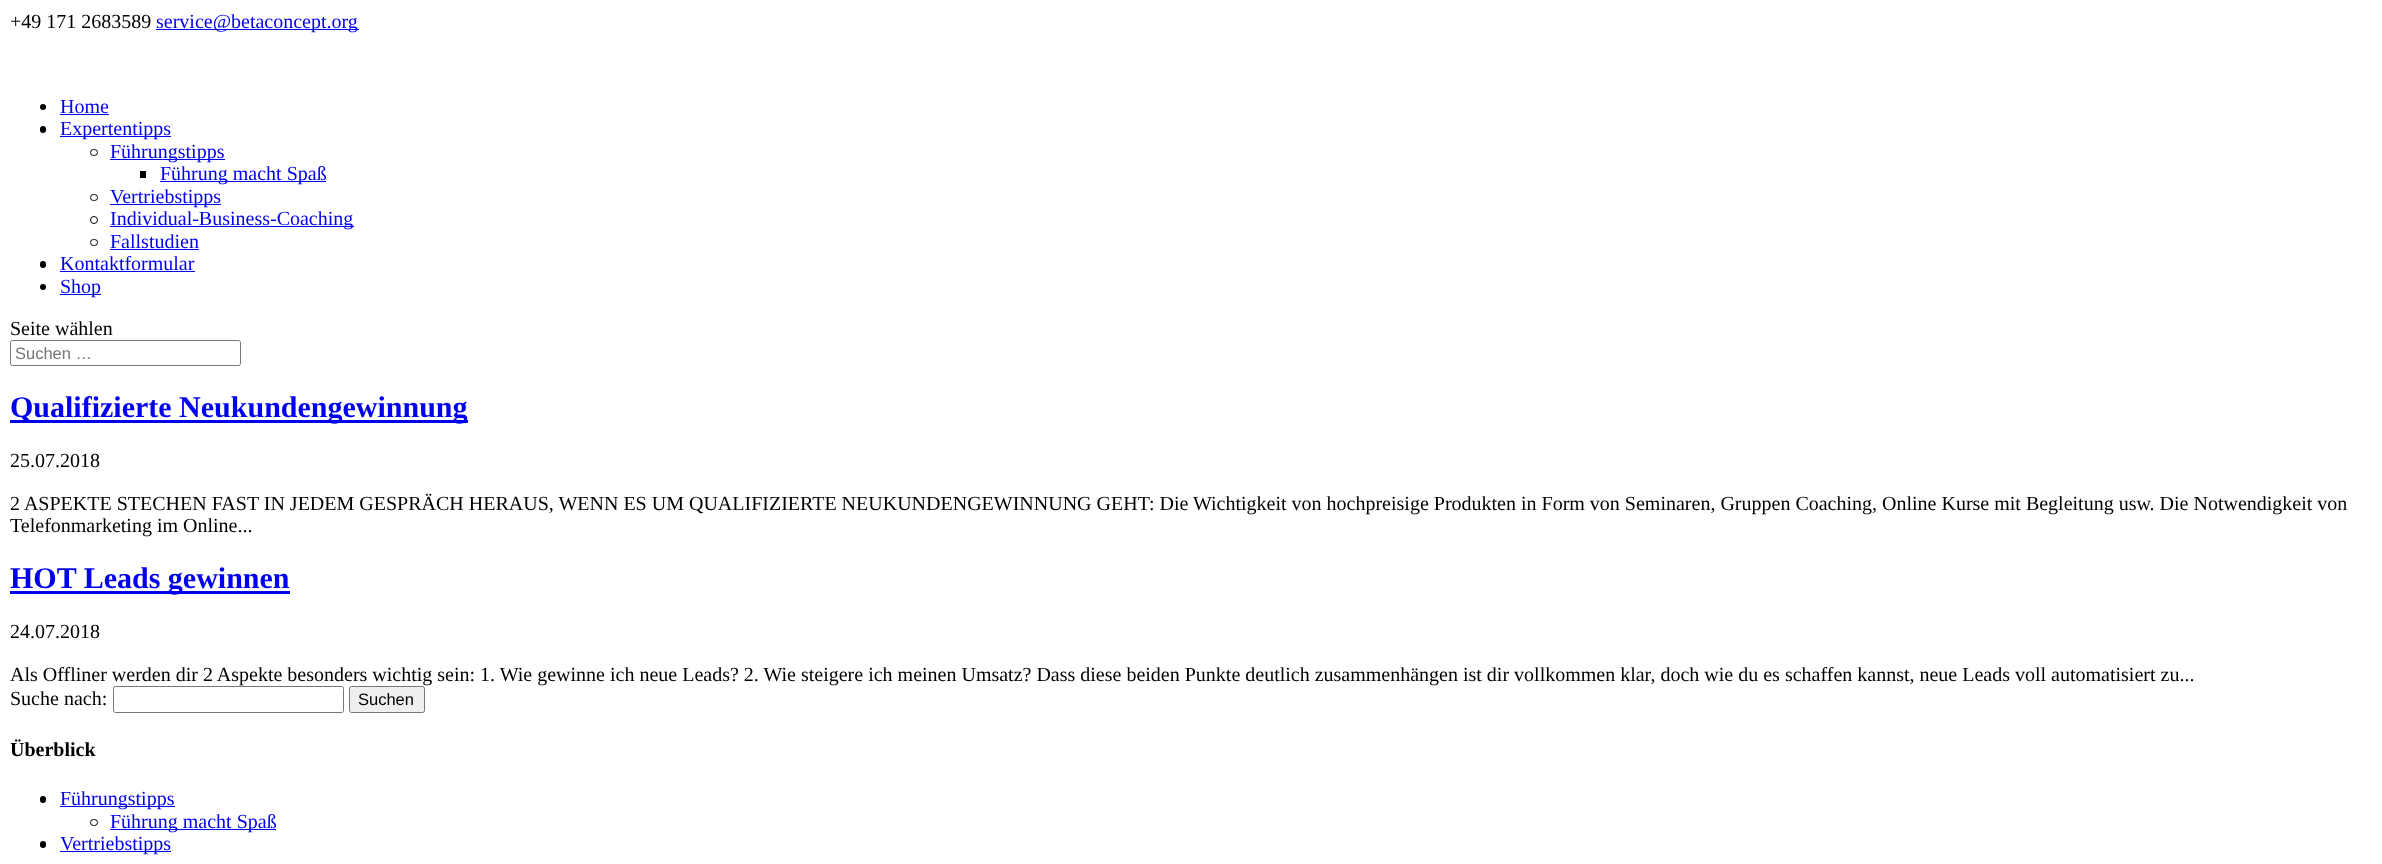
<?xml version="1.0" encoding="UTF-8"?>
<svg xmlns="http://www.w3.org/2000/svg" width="2382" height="864">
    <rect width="100%" height="100%" fill="#FFFFFF"/>
    <text x="10" y="28" font-family="Liberation Serif" font-size="20" fill="#000000">+49 171 2683589</text>
    <rect x="156" y="29" width="203" height="1" fill="#0000EE"/>
    <text x="156" y="28" font-family="Liberation Serif" font-size="20" fill="#0000EE">service@betaconcept.org</text>
    <circle cx="43" cy="107" r="3" fill="#000000"/>
    <text x="60" y="113" font-family="Liberation Serif" font-size="20" fill="#0000EE">Home</text>
    <rect x="60" y="114" width="49" height="1" fill="#0000EE"/>
    <rect x="40" y="126" width="6" height="7" rx="3" fill="#000000"/>
    <rect x="60" y="136" width="111" height="1" fill="#0000EE"/>
    <text x="60" y="135" font-family="Liberation Serif" font-size="20" fill="#0000EE">Expertentipps</text>
    <rect x="90.5" y="149.5" width="7" height="6" rx="3" fill="none" stroke="#000000"/>
    <rect x="110" y="159" width="115" height="1" fill="#0000EE"/>
    <text x="110" y="158" font-family="Liberation Serif" font-size="20" fill="#0000EE">Führungstipps</text>
    <rect x="140" y="171" width="6" height="7" fill="#000000"/>
    <rect x="160" y="181" width="166" height="1" fill="#0000EE"/>
    <text x="160" y="180" font-family="Liberation Serif" font-size="20" fill="#0000EE">Führung macht Spaß</text>
    <rect x="90.5" y="194.5" width="7" height="6" rx="3" fill="none" stroke="#000000"/>
    <rect x="110" y="204" width="111" height="1" fill="#0000EE"/>
    <text x="110" y="203" font-family="Liberation Serif" font-size="20" fill="#0000EE">Vertriebstipps</text>
    <circle cx="94" cy="220" r="3.5" fill="none" stroke="#000000"/>
    <rect x="110" y="226" width="244" height="1" fill="#0000EE"/>
    <text x="110" y="225" font-family="Liberation Serif" font-size="20" fill="#0000EE">Individual-Business-Coaching</text>
    <rect x="90.5" y="239.5" width="7" height="6" rx="3" fill="none" stroke="#000000"/>
    <text x="110" y="248" font-family="Liberation Serif" font-size="20" fill="#0000EE">Fallstudien</text>
    <rect x="110" y="249" width="89" height="1" fill="#0000EE"/>
    <rect x="40" y="261" width="6" height="7" rx="3" fill="#000000"/>
    <text x="60" y="270" font-family="Liberation Serif" font-size="20" fill="#0000EE">Kontaktformular</text>
    <rect x="60" y="271" width="135" height="1" fill="#0000EE"/>
    <circle cx="43" cy="287" r="3" fill="#000000"/>
    <rect x="60" y="294" width="41" height="1" fill="#0000EE"/>
    <text x="60" y="293" font-family="Liberation Serif" font-size="20" fill="#0000EE">Shop</text>
    <text x="10" y="335" font-family="Liberation Serif" font-size="20" fill="#000000">Seite wählen</text>
    <rect x="10.5" y="340.5" width="230" height="25" rx="2" fill="none" stroke="#767676"/>
    <text x="15" y="359" font-family="Liberation Sans" font-size="16.5" fill="#757575">Suchen …</text>
    <rect x="10" y="420" width="458" height="3" fill="#0000EE"/>
    <text x="10" y="417" font-family="Liberation Serif" font-size="30" font-weight="700" fill="#0000EE">Qualifizierte Neukundengewinnung</text>
    <text x="10" y="467" font-family="Liberation Serif" font-size="20" fill="#000000">25.07.2018</text>
    <text font-family="Liberation Serif" font-size="20" fill="#000000">
        <tspan x="10" y="510">2 ASPEKTE STECHEN FAST IN JEDEM GESPRÄCH HERAUS, WENN ES UM QUALIFIZIERTE NEUKUNDENGEWINNUNG GEHT: Die Wichtigkeit von hochpreisige Produkten in Form von Seminaren, Gruppen Coaching, Online Kurse mit Begleitung usw. Die Notwendigkeit von</tspan>
        <tspan x="10" y="532">Telefonmarketing im Online...</tspan>
    </text>
    <rect x="10" y="591" width="280" height="3" fill="#0000EE"/>
    <text x="10" y="588" font-family="Liberation Serif" font-size="30" font-weight="700" fill="#0000EE">HOT Leads gewinnen</text>
    <text x="10" y="638" font-family="Liberation Serif" font-size="20" fill="#000000">24.07.2018</text>
    <text font-family="Liberation Serif" font-size="20" fill="#000000">
        <tspan x="10" y="681">Als Offliner werden dir 2 Aspekte besonders wichtig sein: 1. Wie gewinne ich neue Leads? 2. Wie steigere ich meinen Umsatz? Dass diese beiden Punkte deutlich zusammenhängen ist dir vollkommen klar, doch wie du es schaffen kannst, neue Leads voll automatisiert zu...</tspan>
        <tspan x="10" y="705">Suche nach:</tspan>
    </text>
    <rect x="113.5" y="686.5" width="230" height="26" rx="2" fill="none" stroke="#767676"/>
    <rect x="349.5" y="686.5" width="75" height="26" rx="2" fill="#EFEFEF" stroke="#767676"/>
    <text x="358" y="705" font-family="Liberation Sans" font-size="16.5" fill="#000000">Suchen</text>
    <text x="10" y="756" font-family="Liberation Serif" font-size="20" font-weight="700" fill="#000000">Überblick</text>
    <rect x="40" y="796" width="6" height="7" rx="3" fill="#000000"/>
    <rect x="60" y="806" width="115" height="1" fill="#0000EE"/>
    <text x="60" y="805" font-family="Liberation Serif" font-size="20" fill="#0000EE">Führungstipps</text>
    <rect x="90.5" y="819.5" width="7" height="6" rx="3" fill="none" stroke="#000000"/>
    <rect x="110" y="829" width="166" height="1" fill="#0000EE"/>
    <text x="110" y="828" font-family="Liberation Serif" font-size="20" fill="#0000EE">Führung macht Spaß</text>
    <rect x="40" y="841" width="6" height="7" rx="3" fill="#000000"/>
    <rect x="60" y="851" width="111" height="1" fill="#0000EE"/>
    <text x="60" y="850" font-family="Liberation Serif" font-size="20" fill="#0000EE">Vertriebstipps</text>
</svg>
